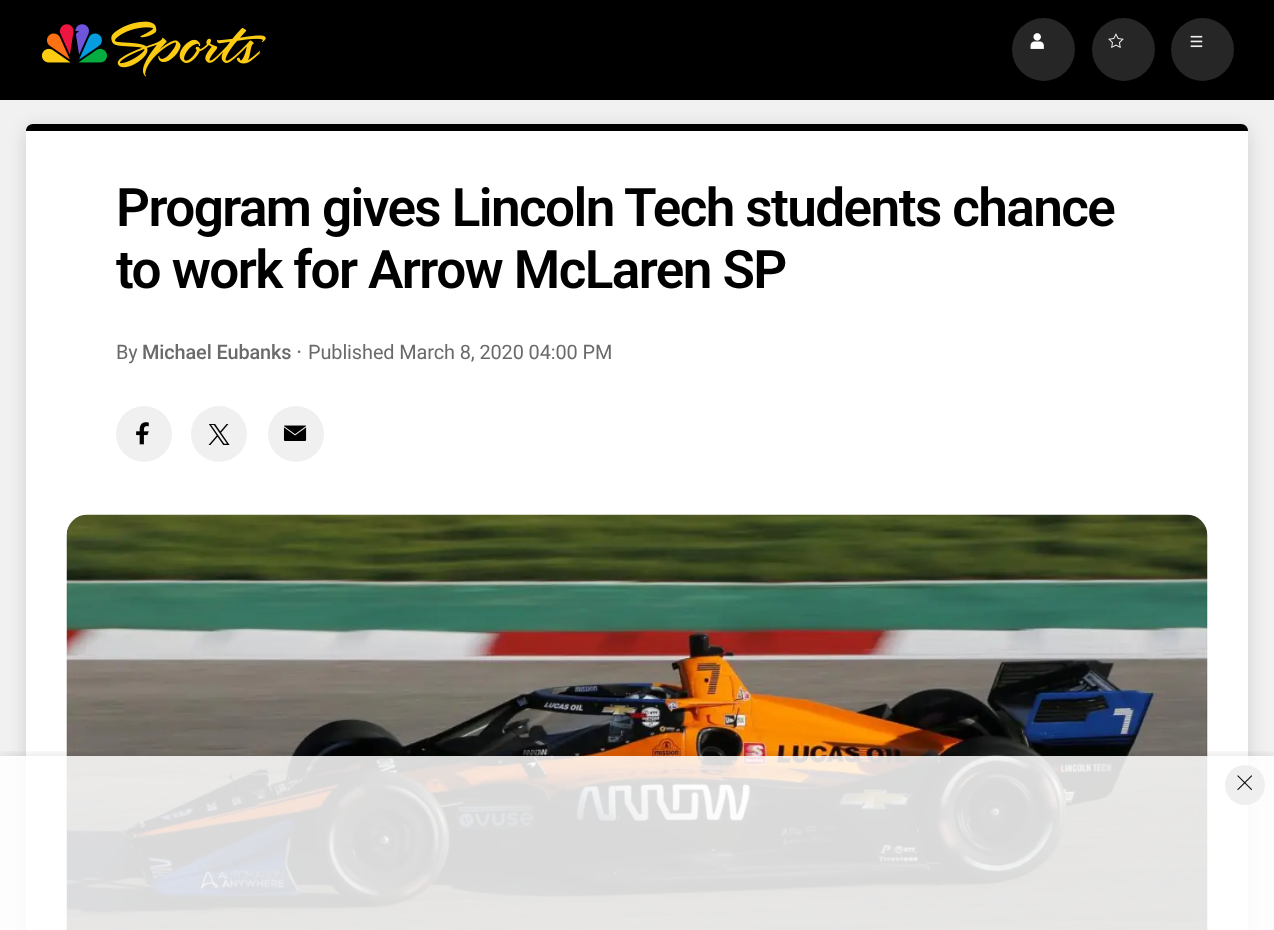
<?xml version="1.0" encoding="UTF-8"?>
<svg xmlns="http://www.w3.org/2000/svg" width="1274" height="930">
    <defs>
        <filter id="blur1" x="-50%" y="-200%" width="200%" height="500%"><feGaussianBlur stdDeviation="9"/></filter>
        <clipPath id="clip1"><rect x="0" y="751" width="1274" height="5"/></clipPath>
        <filter id="blur2" x="-50%" y="-200%" width="200%" height="500%"><feGaussianBlur stdDeviation="3.5"/></filter>
    </defs>
    <rect width="100%" height="100%" fill="#F1F1F1"/>
    <rect x="0" y="0" width="1274" height="100" fill="#000000"/>
    <image x="41" y="21" width="225" height="56" href="img_01.png"/>
    <circle cx="1043.5" cy="49.5" r="31.5" fill="#262626"/>
    <image x="1030" y="33" width="14" height="16" href="img_02.png"/>
    <circle cx="1123.5" cy="49.5" r="31.5" fill="#262626"/>
    <image x="1108" y="33" width="16" height="16" href="img_03.png"/>
    <circle cx="1202.5" cy="49.5" r="31.5" fill="#262626"/>
    <image x="1190" y="35" width="13" height="13" href="img_04.png"/>
    <rect x="26" y="128" width="1222" height="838" rx="9" fill="#000000" fill-opacity="0.15" filter="url(#blur1)"/>
    <rect x="26" y="124" width="1222" height="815" rx="9" fill="#FFFFFF"/>
    <path d="M 33 124 H 1241 C 1245 124 1248 127 1248 131 H 26 C 26 127 29 124 33 124 Z" fill="#000000"/>
    <text font-family="Roboto" font-size="53.1" font-weight="600" letter-spacing="-1.6" fill="#000000">
        <tspan x="116" y="226">Program gives Lincoln Tech students chance</tspan>
        <tspan x="116" y="288">to work for Arrow McLaren SP</tspan>
    </text>
    <text x="116" y="359" font-family="Roboto" font-size="19.9" letter-spacing="-0.1" fill="#6A6A6A">By</text>
    <text x="142" y="359" font-family="Roboto" font-size="19.9" font-weight="500" letter-spacing="-0.1" fill="#6A6A6A">Michael Eubanks</text>
    <circle cx="299.1" cy="351.7" r="1.3" fill="#6A6A6A"/>
    <text x="308" y="359" font-family="Roboto" font-size="19.9" letter-spacing="-0.1" fill="#6A6A6A">Published March 8, 2020 04:00 PM</text>
    <circle cx="144" cy="434" r="28" fill="#F0F0F0"/>
    <image x="136" y="422" width="13" height="23" href="img_05.png"/>
    <circle cx="219" cy="434" r="28" fill="#F0F0F0"/>
    <image x="208" y="424" width="22" height="21" href="img_06.png"/>
    <circle cx="296" cy="434" r="28" fill="#F0F0F0"/>
    <image x="283" y="425" width="24" height="16" href="img_07.png"/>
    <image x="66" y="514" width="1142" height="416" href="img_08.png"/>
    <g clip-path="url(#clip1)">
        <rect x="0" y="753" width="1274" height="175" fill="#000000" fill-opacity="0.08" filter="url(#blur2)"/>
    </g>
    <rect x="0" y="756" width="1274" height="174" fill="#FFFFFF" fill-opacity="0.85"/>
    <circle cx="1245" cy="785" r="20" fill="#EFEFEF"/>
    <image x="1237" y="775" width="15" height="15" href="img_09.png"/>
</svg>
